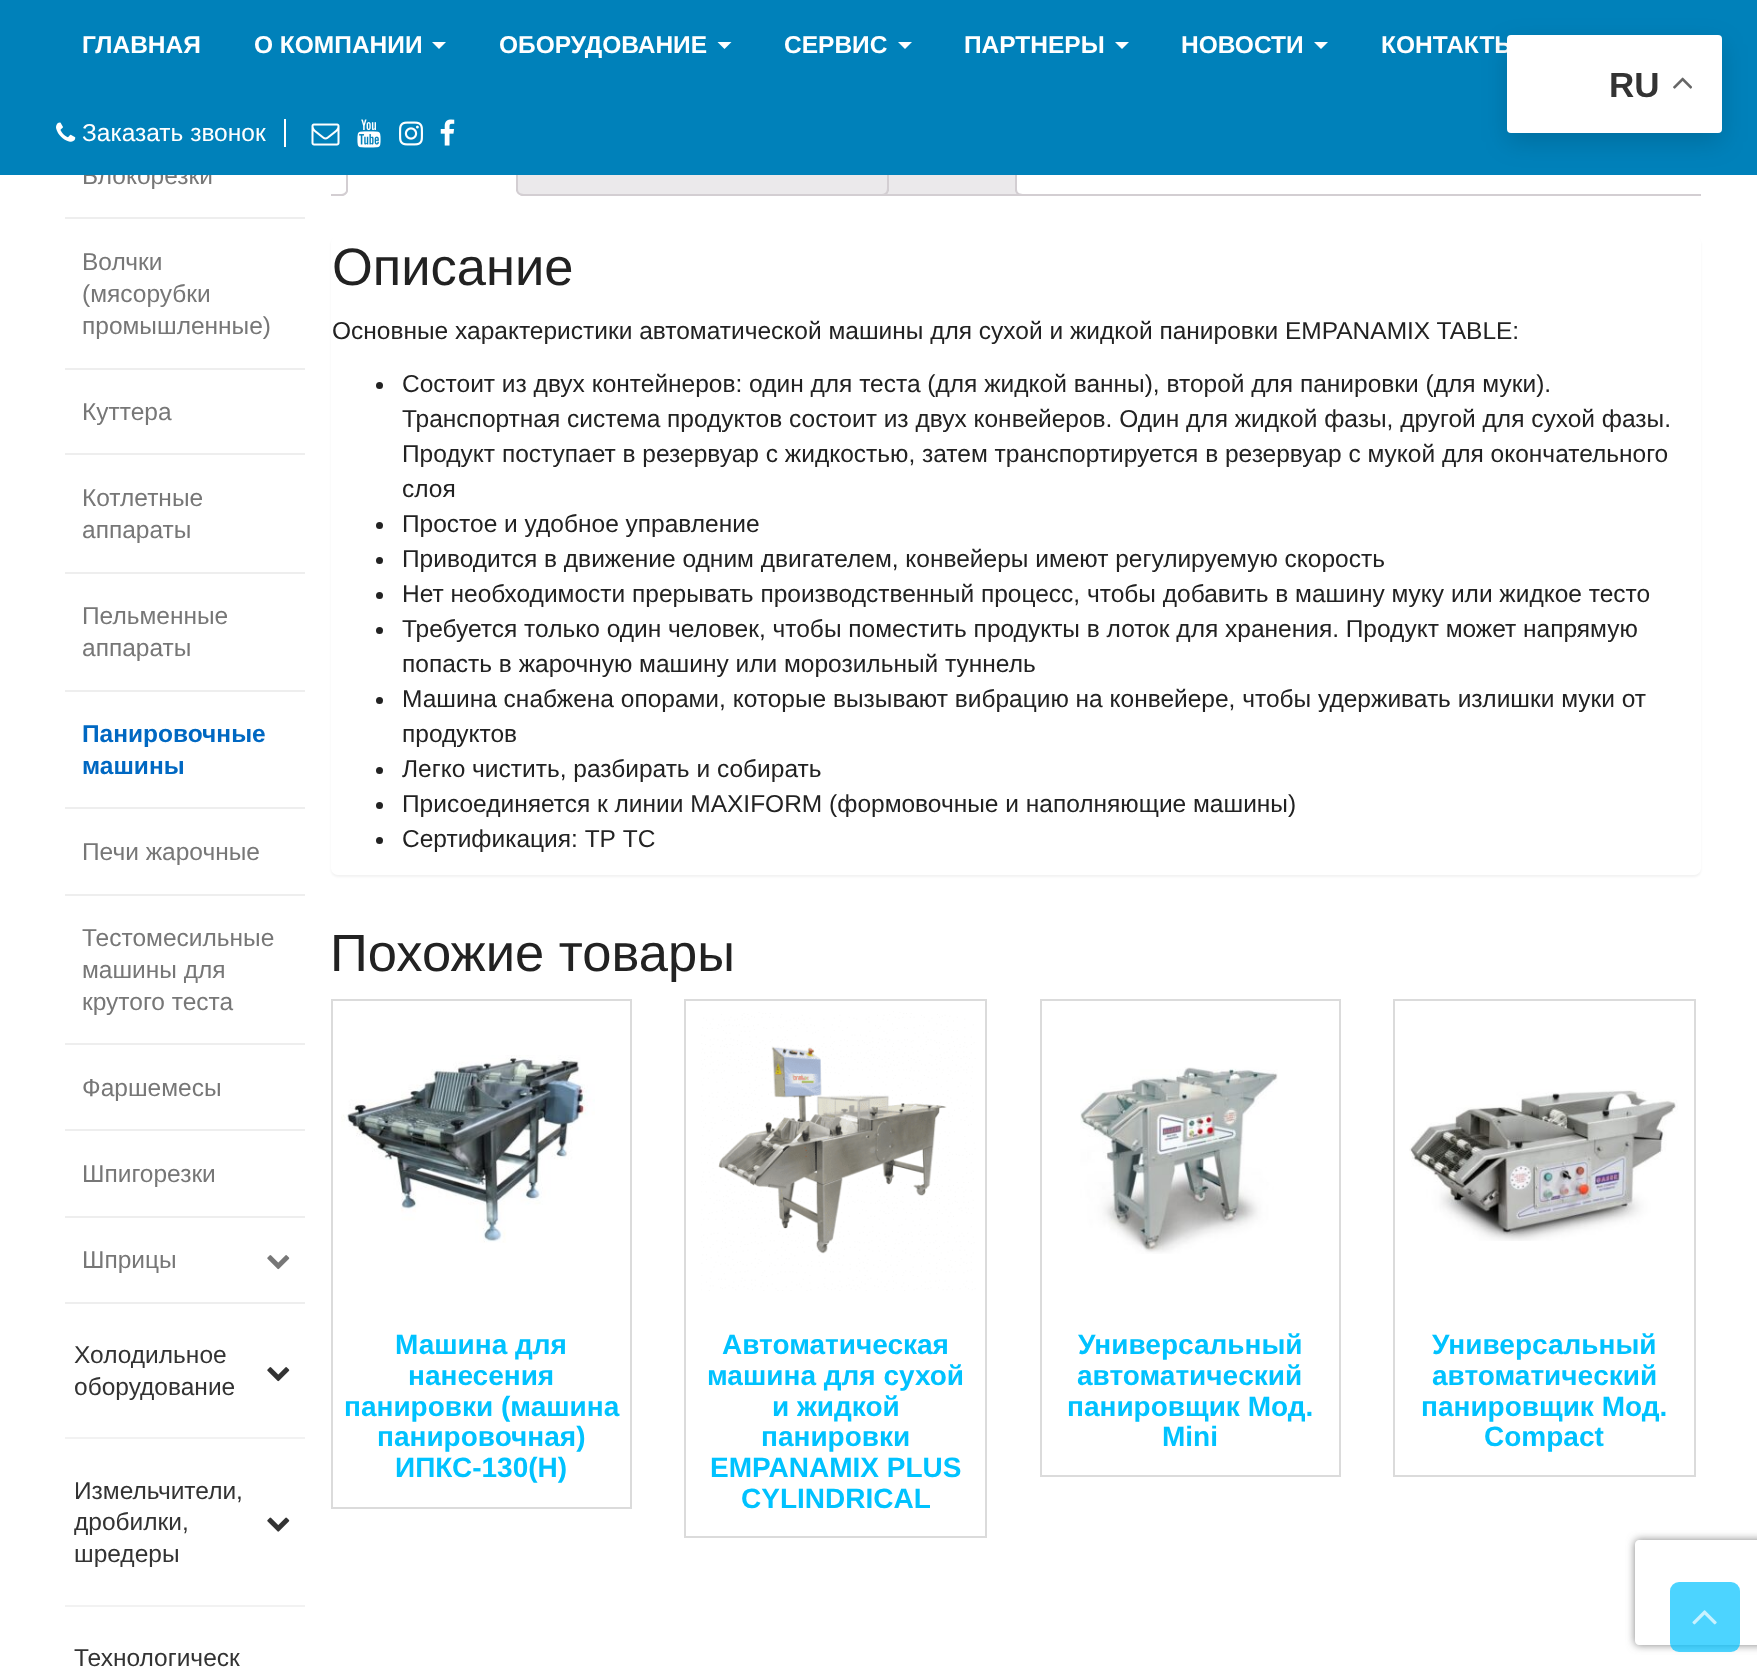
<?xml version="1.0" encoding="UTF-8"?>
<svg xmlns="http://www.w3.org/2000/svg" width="1757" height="1669">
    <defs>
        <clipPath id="clip1"><rect x="331" y="133" width="1370" height="63"/></clipPath>
        <filter id="blur1" x="-50%" y="-200%" width="200%" height="500%"><feGaussianBlur stdDeviation="13"/></filter>
        <filter id="blur2" x="-50%" y="-200%" width="200%" height="500%"><feGaussianBlur stdDeviation="1"/></filter>
        <clipPath id="clip2"><path d="M 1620 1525 H 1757 V 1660 H 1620 Z M 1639 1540 H 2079 C 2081 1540 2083 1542 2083 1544 V 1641 C 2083 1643 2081 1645 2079 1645 H 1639 C 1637 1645 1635 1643 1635 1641 V 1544 C 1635 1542 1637 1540 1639 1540 Z" clip-rule="evenodd"/></clipPath>
        <filter id="blur3" x="-50%" y="-200%" width="200%" height="500%"><feGaussianBlur stdDeviation="4.5"/></filter>
    </defs>
    <rect width="100%" height="100%" fill="#FFFFFF"/>
    <text x="82" y="184" font-family="Liberation Sans" font-size="24.5" fill="#777777">Блокорезки</text>
    <rect x="889" y="175" width="126" height="19" fill="#EBE9EB"/>
    <rect x="888" y="134" width="128" height="61" fill="none" stroke="#D3CED2" stroke-width="2"/>
    <rect x="518" y="175" width="369" height="19" fill="#EBE9EB"/>
    <g clip-path="url(#clip1)">
        <path d="M 884 195.5 V 200 C 890.5 200 893 197.5 893 191 H 888.5 C 888 193.5 886.5 195 884 195.5 Z" fill="#EBE9EB"/>
    </g>
    <path d="M 880 187 H 889 C 889 193.5 886.5 196 880 196 Z M 880 187 H 887 C 887 192.5 885.5 194 880 194 Z" fill="#D3CED2" fill-rule="evenodd"/>
    <g clip-path="url(#clip1)">
        <path d="M 1012 191 C 1012 196.5 1014 200 1020 200 V 195.5 C 1017.5 195 1016 193.5 1015.5 191 Z" fill="#EBE9EB"/>
    </g>
    <path d="M 1015 187 H 1024 V 196 C 1019.5 196 1015 194.5 1015 189 Z M 1017 187 H 1024 V 194 C 1020.5 194 1017 193.5 1017 189 Z" fill="#D3CED2" fill-rule="evenodd"/>
    <rect x="331" y="194" width="1370" height="2" fill="#D3CED2"/>
    <path d="M 518 196 V 140 C 518 138 517 136 516 135 L 515 136 C 516 137 516 138 516 140 V 194 Z" fill="#D3CED2"/>
    <path d="M 518 196 L 516 194 H 348 L 346 196 Z" fill="#FFFFFF"/>
    <path d="M 346 196 V 138 L 348 135 L 350 136 L 348 139 V 194 Z" fill="#D3CED2"/>
    <rect x="0" y="0" width="1757" height="175" fill="#0081BA"/>
    <text x="82" y="53" font-family="Liberation Sans" font-size="24.5" font-weight="700" fill="#FFFFFF">ГЛАВНАЯ</text>
    <text x="254" y="53" font-family="Liberation Sans" font-size="24.5" font-weight="700" fill="#FFFFFF">О КОМПАНИИ</text>
    <path d="M 432 42 H 446 L 439 49 Z" fill="#FFFFFF"/>
    <text x="499" y="53" font-family="Liberation Sans" font-size="24.5" font-weight="700" fill="#FFFFFF">ОБОРУДОВАНИЕ</text>
    <path d="M 717.5 42 H 731.5 L 724.5 49 Z" fill="#FFFFFF"/>
    <text x="784" y="53" font-family="Liberation Sans" font-size="24.5" font-weight="700" fill="#FFFFFF">СЕРВИС</text>
    <path d="M 898 42 H 912 L 905 49 Z" fill="#FFFFFF"/>
    <text x="964" y="53" font-family="Liberation Sans" font-size="24.5" font-weight="700" fill="#FFFFFF">ПАРТНЕРЫ</text>
    <path d="M 1115 42 H 1129 L 1122 49 Z" fill="#FFFFFF"/>
    <text x="1181" y="53" font-family="Liberation Sans" font-size="24.5" font-weight="700" fill="#FFFFFF">НОВОСТИ</text>
    <path d="M 1314 42 H 1328 L 1321 49 Z" fill="#FFFFFF"/>
    <text x="1381" y="53" font-family="Liberation Sans" font-size="24.5" font-weight="700" fill="#FFFFFF">КОНТАКТЫ</text>
    <rect x="284" y="119" width="2" height="28" fill="#FFFFFF"/>
    <image x="56" y="122" width="20" height="20" href="img_01.png"/>
    <text x="82" y="141" font-family="Liberation Sans" font-size="24.5" fill="#FFFFFF">Заказать звонок</text>
    <image x="311" y="123" width="29" height="23" href="img_02.png"/>
    <image x="357" y="119" width="24" height="29" href="img_03.png"/>
    <image x="399" y="121" width="24" height="25" href="img_04.png"/>
    <image x="440" y="119" width="15" height="27" href="img_05.png"/>
    <rect x="1507" y="44" width="215" height="98" rx="4" fill="#000000" fill-opacity="0.15" filter="url(#blur1)"/>
    <rect x="1507" y="35" width="215" height="98" rx="4" fill="#FFFFFF"/>
    <text x="1609" y="97" font-family="Liberation Sans" font-size="35" font-weight="700" fill="#333333">RU</text>
    <image x="1673" y="77" width="19" height="12" href="img_06.png"/>
    <rect x="65" y="217" width="240" height="2" fill="#EEEEEE"/>
    <rect x="65" y="368" width="240" height="2" fill="#EEEEEE"/>
    <text font-family="Liberation Sans" font-size="24.5" fill="#777777">
        <tspan x="82" y="270">Волчки</tspan>
        <tspan x="82" y="302">(мясорубки</tspan>
        <tspan x="82" y="334">промышленные)</tspan>
    </text>
    <rect x="65" y="453" width="240" height="2" fill="#EEEEEE"/>
    <text x="82" y="420" font-family="Liberation Sans" font-size="24.5" fill="#777777">Куттера</text>
    <rect x="65" y="572" width="240" height="2" fill="#EEEEEE"/>
    <text font-family="Liberation Sans" font-size="24.5" fill="#777777">
        <tspan x="82" y="506">Котлетные</tspan>
        <tspan x="82" y="538">аппараты</tspan>
    </text>
    <rect x="65" y="690" width="240" height="2" fill="#EEEEEE"/>
    <text font-family="Liberation Sans" font-size="24.5" fill="#777777">
        <tspan x="82" y="624">Пельменные</tspan>
        <tspan x="82" y="656">аппараты</tspan>
    </text>
    <rect x="65" y="807" width="240" height="2" fill="#EEEEEE"/>
    <text font-family="Liberation Sans" font-size="24.5" font-weight="700" fill="#0068C2">
        <tspan x="82" y="742">Панировочные</tspan>
        <tspan x="82" y="774">машины</tspan>
    </text>
    <rect x="65" y="894" width="240" height="2" fill="#EEEEEE"/>
    <text x="82" y="860" font-family="Liberation Sans" font-size="24.5" fill="#777777">Печи жарочные</text>
    <rect x="65" y="1043" width="240" height="2" fill="#EEEEEE"/>
    <text font-family="Liberation Sans" font-size="24.5" fill="#777777">
        <tspan x="82" y="946">Тестомесильные</tspan>
        <tspan x="82" y="978">машины для</tspan>
        <tspan x="82" y="1010">крутого теста</tspan>
    </text>
    <rect x="65" y="1129" width="240" height="2" fill="#EEEEEE"/>
    <text x="82" y="1096" font-family="Liberation Sans" font-size="24.5" fill="#777777">Фаршемесы</text>
    <rect x="65" y="1216" width="240" height="2" fill="#EEEEEE"/>
    <text x="82" y="1182" font-family="Liberation Sans" font-size="24.5" fill="#777777">Шпигорезки</text>
    <rect x="65" y="1302" width="240" height="2" fill="#EEEEEE"/>
    <text x="82" y="1268" font-family="Liberation Sans" font-size="24.5" fill="#777777">Шприцы</text>
    <image x="267" y="1255" width="23" height="15" href="img_07.png"/>
    <rect x="65" y="1437" width="240" height="2" fill="#F2F2F2"/>
    <text font-family="Liberation Sans" font-size="24.5" fill="#333333">
        <tspan x="74" y="1363">Холодильное</tspan>
        <tspan x="74" y="1395">оборудование</tspan>
    </text>
    <image x="267" y="1367" width="23" height="15" href="img_08.png"/>
    <rect x="65" y="1605" width="240" height="2" fill="#F2F2F2"/>
    <text font-family="Liberation Sans" font-size="24.5" fill="#333333">
        <tspan x="74" y="1499">Измельчители,</tspan>
        <tspan x="74" y="1530">дробилки,</tspan>
        <tspan x="74" y="1562">шредеры</tspan>
    </text>
    <image x="267" y="1517" width="23" height="15" href="img_09.png"/>
    <text x="74" y="1666" font-family="Liberation Sans" font-size="24.5" fill="#333333">Технологическ</text>
    <g clip-path="url(#clip1)">
        <path d="M 343 196 V 200 C 349.5 200 352 197.5 352 191 H 348 C 347.5 193.5 345.5 195 343 196 Z" fill="#FFFFFF"/>
    </g>
    <path d="M 339.5 187 H 348 C 348 193.5 345.5 196 339.5 196 Z M 339.5 187 H 346.5 C 346.5 192.5 344.5 194 339.5 194 Z" fill="#D3CED2" fill-rule="evenodd"/>
    <g clip-path="url(#clip1)">
        <path d="M 513 191 C 513 197.5 515.5 200 522 200 V 196 C 519.5 195.5 517.5 193.5 516.5 191 Z" fill="#FFFFFF"/>
    </g>
    <path d="M 516 187 H 525 V 196 C 520.5 196 516 194.5 516 189 Z M 518 187 H 525 V 194 C 521.5 194 518 193.5 518 189 Z" fill="#D3CED2" fill-rule="evenodd"/>
    <rect x="331" y="238" width="1370" height="639" rx="7" fill="#000000" fill-opacity="0.05" filter="url(#blur2)"/>
    <rect x="331" y="236" width="1370" height="639" rx="7" fill="#FFFFFF"/>
    <text x="332" y="285" font-family="Liberation Sans" font-size="52.5" fill="#222222">Описание</text>
    <text x="332" y="339" font-family="Liberation Sans" font-size="24.5" fill="#222222">Основные характеристики автоматической машины для сухой и жидкой панировки EMPANAMIX TABLE:</text>
    <circle cx="379.5" cy="385.5" r="3.5" fill="#222222"/>
    <text font-family="Liberation Sans" font-size="24.5" fill="#222222">
        <tspan x="402" y="392">Состоит из двух контейнеров: один для теста (для жидкой ванны), второй для панировки (для муки).</tspan>
        <tspan x="402" y="427">Транспортная система продуктов состоит из двух конвейеров. Один для жидкой фазы, другой для сухой фазы.</tspan>
        <tspan x="402" y="462">Продукт поступает в резервуар с жидкостью, затем транспортируется в резервуар с мукой для окончательного</tspan>
        <tspan x="402" y="497">слоя</tspan>
    </text>
    <circle cx="379.5" cy="525.5" r="3.5" fill="#222222"/>
    <text x="402" y="532" font-family="Liberation Sans" font-size="24.5" fill="#222222">Простое и удобное управление</text>
    <circle cx="379.5" cy="560.5" r="3.5" fill="#222222"/>
    <text x="402" y="567" font-family="Liberation Sans" font-size="24.5" fill="#222222">Приводится в движение одним двигателем, конвейеры имеют регулируемую скорость</text>
    <circle cx="379.5" cy="595.5" r="3.5" fill="#222222"/>
    <text x="402" y="602" font-family="Liberation Sans" font-size="24.5" fill="#222222">Нет необходимости прерывать производственный процесс, чтобы добавить в машину муку или жидкое тесто</text>
    <circle cx="379.5" cy="630.5" r="3.5" fill="#222222"/>
    <text font-family="Liberation Sans" font-size="24.5" fill="#222222">
        <tspan x="402" y="637">Требуется только один человек, чтобы поместить продукты в лоток для хранения. Продукт может напрямую</tspan>
        <tspan x="402" y="672">попасть в жарочную машину или морозильный туннель</tspan>
    </text>
    <circle cx="379.5" cy="700.5" r="3.5" fill="#222222"/>
    <text font-family="Liberation Sans" font-size="24.5" fill="#222222">
        <tspan x="402" y="707">Машина снабжена опорами, которые вызывают вибрацию на конвейере, чтобы удерживать излишки муки от</tspan>
        <tspan x="402" y="742">продуктов</tspan>
    </text>
    <circle cx="379.5" cy="770.5" r="3.5" fill="#222222"/>
    <text x="402" y="777" font-family="Liberation Sans" font-size="24.5" fill="#222222">Легко чистить, разбирать и собирать</text>
    <circle cx="379.5" cy="805.5" r="3.5" fill="#222222"/>
    <text x="402" y="812" font-family="Liberation Sans" font-size="24.5" fill="#222222">Присоединяется к линии MAXIFORM (формовочные и наполняющие машины)</text>
    <circle cx="379.5" cy="840.5" r="3.5" fill="#222222"/>
    <text x="402" y="847" font-family="Liberation Sans" font-size="24.5" fill="#222222">Сертификация: ТР ТС</text>
    <text x="330" y="971" font-family="Liberation Sans" font-size="52.5" fill="#222222">Похожие товары</text>
    <rect x="332" y="1000" width="299" height="508" fill="none" stroke="#DBDBDB" stroke-width="2"/>
    <image x="341" y="1055" width="254" height="188" href="img_10.png"/>
    <text x="395" y="1354" font-family="Liberation Sans" font-size="28" font-weight="700" fill="#00C2FF">Машина для</text>
    <text x="408" y="1385" font-family="Liberation Sans" font-size="28" font-weight="700" fill="#00C2FF">нанесения</text>
    <text x="344" y="1416" font-family="Liberation Sans" font-size="28" font-weight="700" fill="#00C2FF">панировки (машина</text>
    <text x="377" y="1446" font-family="Liberation Sans" font-size="28" font-weight="700" fill="#00C2FF">панировочная)</text>
    <text x="395" y="1477" font-family="Liberation Sans" font-size="28" font-weight="700" fill="#00C2FF">ИПКС-130(Н)</text>
    <rect x="685" y="1000" width="301" height="537" fill="none" stroke="#DBDBDB" stroke-width="2"/>
    <image x="701" y="1011" width="275" height="280" href="img_11.png"/>
    <text x="722" y="1354" font-family="Liberation Sans" font-size="28" font-weight="700" fill="#00C2FF">Автоматическая</text>
    <text x="707" y="1385" font-family="Liberation Sans" font-size="28" font-weight="700" fill="#00C2FF">машина для сухой</text>
    <text x="772" y="1416" font-family="Liberation Sans" font-size="28" font-weight="700" fill="#00C2FF">и жидкой</text>
    <text x="761" y="1446" font-family="Liberation Sans" font-size="28" font-weight="700" fill="#00C2FF">панировки</text>
    <text x="710" y="1477" font-family="Liberation Sans" font-size="28" font-weight="700" fill="#00C2FF">EMPANAMIX PLUS</text>
    <text x="741" y="1508" font-family="Liberation Sans" font-size="28" font-weight="700" fill="#00C2FF">CYLINDRICAL</text>
    <rect x="1041" y="1000" width="299" height="476" fill="none" stroke="#DBDBDB" stroke-width="2"/>
    <image x="1080" y="1067" width="198" height="187" href="img_12.png"/>
    <text x="1078" y="1354" font-family="Liberation Sans" font-size="28" font-weight="700" fill="#00C2FF">Универсальный</text>
    <text x="1077" y="1385" font-family="Liberation Sans" font-size="28" font-weight="700" fill="#00C2FF">автоматичeский</text>
    <text x="1067" y="1416" font-family="Liberation Sans" font-size="28" font-weight="700" fill="#00C2FF">панировщик Мод.</text>
    <text x="1162" y="1446" font-family="Liberation Sans" font-size="28" font-weight="700" fill="#00C2FF">Mini</text>
    <rect x="1394" y="1000" width="301" height="476" fill="none" stroke="#DBDBDB" stroke-width="2"/>
    <image x="1409" y="1089" width="269" height="152" href="img_13.png"/>
    <text font-family="Liberation Sans" font-size="28" font-weight="700" fill="#00C2FF">
        <tspan x="1432" y="1354">Универсальный</tspan>
        <tspan x="1432" y="1385">автоматичeский</tspan>
    </text>
    <text x="1421" y="1416" font-family="Liberation Sans" font-size="28" font-weight="700" fill="#00C2FF">панировщик Мод.</text>
    <text x="1484" y="1446" font-family="Liberation Sans" font-size="28" font-weight="700" fill="#00C2FF">Compact</text>
    <g clip-path="url(#clip2)">
        <rect x="1635" y="1540" width="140" height="105" rx="4" fill="#808080" filter="url(#blur3)"/>
    </g>
    <rect x="1670" y="1582" width="70" height="70" rx="9" fill="#00C2FF" fill-opacity="0.7"/>
    <image x="1692" y="1610" width="25" height="15" href="img_14.png"/>
</svg>
